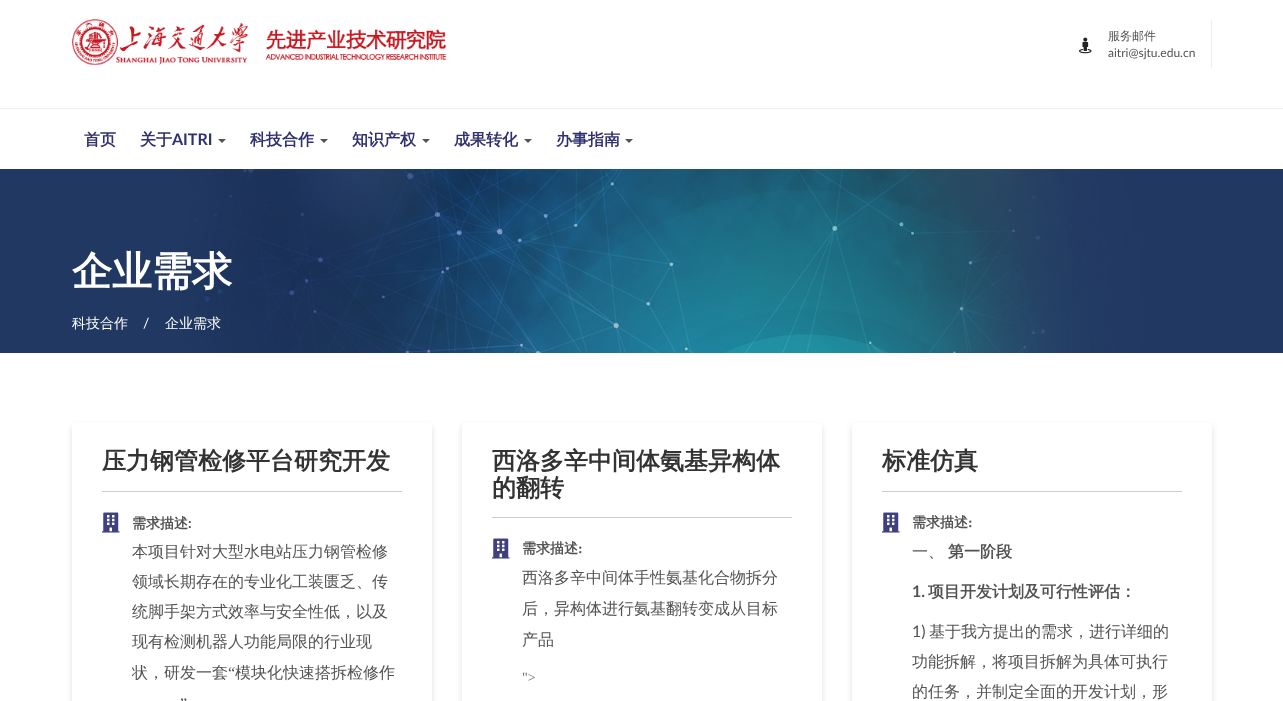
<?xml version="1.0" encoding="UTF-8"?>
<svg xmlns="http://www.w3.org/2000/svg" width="1283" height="701">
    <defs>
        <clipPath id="clip1"><path d="M 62 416 H 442 V 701 H 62 Z M 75 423 H 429 C 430.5 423 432 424.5 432 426 V 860 C 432 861.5 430.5 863 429 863 H 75 C 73.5 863 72 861.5 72 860 V 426 C 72 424.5 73.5 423 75 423 Z" clip-rule="evenodd"/></clipPath>
        <filter id="blur1" x="-50%" y="-200%" width="200%" height="500%"><feGaussianBlur stdDeviation="3"/></filter>
        <clipPath id="clip2"><path d="M 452 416 H 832 V 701 H 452 Z M 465 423 H 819 C 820.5 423 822 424.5 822 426 V 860 C 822 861.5 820.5 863 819 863 H 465 C 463.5 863 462 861.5 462 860 V 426 C 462 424.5 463.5 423 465 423 Z" clip-rule="evenodd"/></clipPath>
        <clipPath id="clip3"><path d="M 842 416 H 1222 V 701 H 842 Z M 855 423 H 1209 C 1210.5 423 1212 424.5 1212 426 V 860 C 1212 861.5 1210.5 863 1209 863 H 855 C 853.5 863 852 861.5 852 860 V 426 C 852 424.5 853.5 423 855 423 Z" clip-rule="evenodd"/></clipPath>
    </defs>
    <rect width="100%" height="100%" fill="#FFFFFF"/>
    <image x="72" y="19" width="375" height="47" href="img_01.png"/>
    <rect x="1211" y="20" width="1" height="48" fill="#EEEEEE"/>
    <image x="1079" y="37" width="13" height="17" href="img_02.png"/>
    <text x="1108" y="40" font-family="WenQuanYi Zen Hei" font-size="12" font-weight="500" fill="#535353">服务邮件</text>
    <text x="1108" y="57" font-family="Lato" font-size="12" fill="#535353">aitri@sjtu.edu.cn</text>
    <rect x="0" y="108" width="1283" height="1" fill="#EEEEEE"/>
    <text x="84" y="145" font-family="WenQuanYi Zen Hei" font-size="16" font-weight="700" fill="#30306E">首页</text>
    <text x="140" y="145" font-family="WenQuanYi Zen Hei" font-size="16" font-weight="700" fill="#30306E">关于</text>
    <text x="172" y="145" font-family="Lato" font-size="16" font-weight="700" fill="#30306E">AITRI</text>
    <path d="M 218 139 H 226 L 222 143 Z" fill="#535353"/>
    <text x="250" y="145" font-family="WenQuanYi Zen Hei" font-size="16" font-weight="700" fill="#30306E">科技合作</text>
    <path d="M 320 139 H 328 L 324 143 Z" fill="#535353"/>
    <text x="352" y="145" font-family="WenQuanYi Zen Hei" font-size="16" font-weight="700" fill="#30306E">知识产权</text>
    <path d="M 422 139 H 430 L 426 143 Z" fill="#535353"/>
    <text x="454" y="145" font-family="WenQuanYi Zen Hei" font-size="16" font-weight="700" fill="#30306E">成果转化</text>
    <path d="M 524 139 H 532 L 528 143 Z" fill="#535353"/>
    <text x="556" y="145" font-family="WenQuanYi Zen Hei" font-size="16" font-weight="700" fill="#30306E">办事指南</text>
    <path d="M 625 139 H 633 L 629 143 Z" fill="#535353"/>
    <image x="0" y="169" width="1283" height="184" href="img_03.png"/>
    <text x="72" y="285" font-family="WenQuanYi Zen Hei" font-size="40" font-weight="700" fill="#FFFFFF">企业需求</text>
    <text x="72" y="328" font-family="WenQuanYi Zen Hei" font-size="14" font-weight="500" fill="#FFFFFF">科技合作</text>
    <text x="143" y="328" font-family="Lato" font-size="14" fill="#FFFFFF">/</text>
    <text x="165" y="328" font-family="WenQuanYi Zen Hei" font-size="14" font-weight="500" fill="#FFFFFF">企业需求</text>
    <g clip-path="url(#clip1)">
        <rect x="72" y="426" width="360" height="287" rx="3" fill="#000000" fill-opacity="0.12" filter="url(#blur1)"/>
    </g>
    <rect x="102" y="491" width="300" height="1" fill="#CCCCCC"/>
    <text x="102" y="469" font-family="WenQuanYi Zen Hei" font-size="24" font-weight="700" fill="#333333">压力钢管检修平台研究开发</text>
    <image x="102" y="512" width="18" height="21" href="img_04.png"/>
    <text x="132" y="528" font-family="WenQuanYi Zen Hei" font-size="14" font-weight="700" fill="#535353">需求描述</text>
    <text x="188" y="528" font-family="Lato" font-size="14" font-weight="700" fill="#535353">:</text>
    <text font-family="WenQuanYi Zen Hei" font-size="16" font-weight="500" fill="#535353">
        <tspan x="132" y="557">本项目针对大型水电站压力钢管检修</tspan>
        <tspan x="132" y="587">领域长期存在的专业化工装匮乏、传</tspan>
        <tspan x="132" y="617">统脚手架方式效率与安全性低，以及</tspan>
        <tspan x="132" y="647">现有检测机器人功能局限的行业现</tspan>
        <tspan x="132" y="678">状，研发一套</tspan>
    </text>
    <text x="228" y="678" font-family="Liberation Serif" font-size="16" fill="#535353">“</text>
    <text x="235" y="678" font-family="WenQuanYi Zen Hei" font-size="16" font-weight="500" fill="#535353">模块化快速搭拆检修作</text>
    <text x="180" y="709" font-family="Liberation Serif" font-size="16" fill="#535353">”</text>
    <g clip-path="url(#clip2)">
        <rect x="462" y="426" width="360" height="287" rx="3" fill="#000000" fill-opacity="0.12" filter="url(#blur1)"/>
    </g>
    <rect x="492" y="517" width="300" height="1" fill="#CCCCCC"/>
    <text font-family="WenQuanYi Zen Hei" font-size="24" font-weight="700" fill="#333333">
        <tspan x="492" y="469">西洛多辛中间体氨基异构体</tspan>
        <tspan x="492" y="496">的翻转</tspan>
    </text>
    <image x="492" y="538" width="18" height="21" href="img_04.png"/>
    <text x="522" y="553" font-family="WenQuanYi Zen Hei" font-size="14" font-weight="700" fill="#535353">需求描述</text>
    <text x="578" y="553" font-family="Liberation Serif" font-size="14" font-weight="700" fill="#535353">:</text>
    <text font-family="WenQuanYi Zen Hei" font-size="16" font-weight="500" fill="#535353">
        <tspan x="522" y="583">西洛多辛中间体手性氨基化合物拆分</tspan>
        <tspan x="522" y="614">后，异构体进行氨基翻转变成从目标</tspan>
        <tspan x="522" y="645">产品</tspan>
    </text>
    <text x="522" y="682" font-family="Liberation Serif" font-size="14" fill="#666666">"&gt;</text>
    <g clip-path="url(#clip3)">
        <rect x="852" y="426" width="360" height="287" rx="3" fill="#000000" fill-opacity="0.12" filter="url(#blur1)"/>
    </g>
    <rect x="882" y="491" width="300" height="1" fill="#CCCCCC"/>
    <text x="882" y="469" font-family="WenQuanYi Zen Hei" font-size="24" font-weight="700" fill="#333333">标准仿真</text>
    <image x="882" y="512" width="18" height="21" href="img_04.png"/>
    <text x="912" y="527" font-family="WenQuanYi Zen Hei" font-size="14" font-weight="700" fill="#535353">需求描述</text>
    <text x="968" y="527" font-family="Liberation Serif" font-size="14" font-weight="700" fill="#535353">:</text>
    <text x="912" y="557" font-family="WenQuanYi Zen Hei" font-size="16" font-weight="500" fill="#535353">一、</text>
    <text x="948" y="557" font-family="WenQuanYi Zen Hei" font-size="16" font-weight="700" fill="#535353">第一阶段</text>
    <text x="912" y="597" font-family="Lato" font-size="16" font-weight="700" fill="#535353">1.</text>
    <text x="928" y="597" font-family="WenQuanYi Zen Hei" font-size="16" font-weight="700" fill="#535353">项目开发计划及可行性评估：</text>
    <text x="912" y="637" font-family="Lato" font-size="16" fill="#535353">1)</text>
    <text x="929" y="637" font-family="WenQuanYi Zen Hei" font-size="16" font-weight="500" fill="#535353">基于我方提出的需求，进行详细的</text>
    <text font-family="WenQuanYi Zen Hei" font-size="16" font-weight="500" fill="#535353">
        <tspan x="912" y="667">功能拆解，将项目拆解为具体可执行</tspan>
        <tspan x="912" y="697">的任务，并制定全面的开发计划，形</tspan>
    </text>
</svg>
